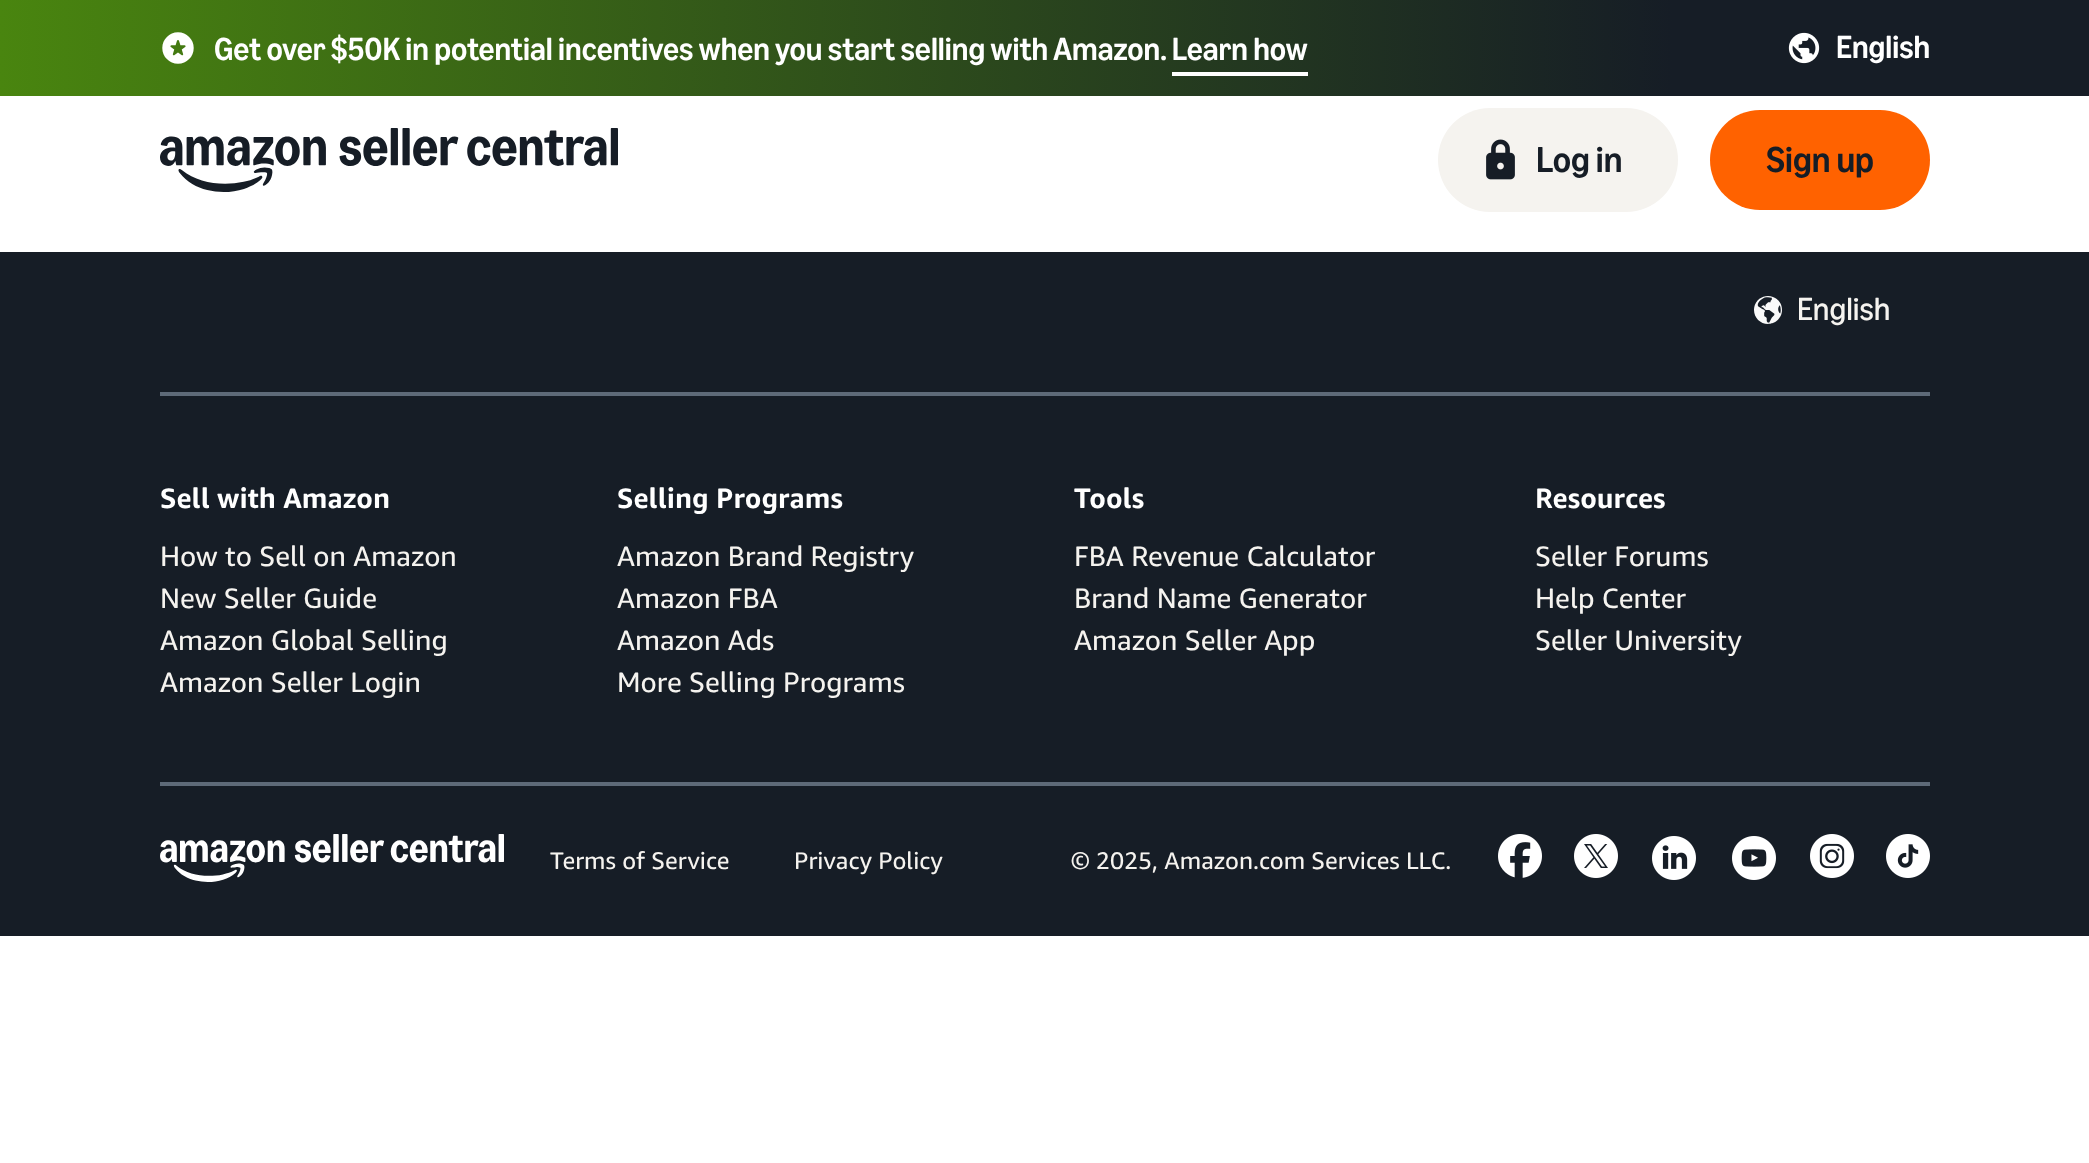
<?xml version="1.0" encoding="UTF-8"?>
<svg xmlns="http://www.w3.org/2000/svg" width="2089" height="1163">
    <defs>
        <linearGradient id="g1" gradientUnits="userSpaceOnUse" x1="0" y1="48" x2="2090" y2="48"><stop offset="0" stop-color="#49850F"/><stop offset="0.8" stop-color="#161D26"/></linearGradient>
    </defs>
    <rect width="100%" height="100%" fill="#FFFFFF"/>
    <rect x="0" y="0" width="2089" height="96" fill="url(#g1)"/>
    <image x="162" y="32" width="32" height="32" href="img_01.png"/>
    <text x="214" y="60" font-family="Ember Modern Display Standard" font-size="32" font-weight="500" fill="#FFFFFF">Get over $50K in potential incentives when you start selling with Amazon. Learn how</text>
    <rect x="1172" y="72" width="136" height="4" fill="#FFFFFF"/>
    <image x="1788" y="32" width="32" height="32" href="img_02.png"/>
    <text x="1836" y="58" font-family="Ember Modern Display Standard" font-size="32" font-weight="500" fill="#FFFFFF">English</text>
    <image x="160" y="128" width="458" height="64" href="img_03.png"/>
    <rect x="1438" y="108" width="240" height="104" rx="52" fill="#F5F3EF"/>
    <image x="1486" y="139" width="29" height="41" href="img_04.png"/>
    <text x="1536" y="172" font-family="Ember Modern Display Standard" font-size="36" font-weight="500" fill="#161D26">Log in</text>
    <rect x="1710" y="110" width="220" height="100" rx="50" fill="#FF6200"/>
    <text x="1766" y="172" font-family="Ember Modern Display Standard" font-size="36" font-weight="500" fill="#161D26">Sign up</text>
    <rect x="0" y="252" width="2089" height="684" fill="#161D26"/>
    <image x="1754" y="296" width="28" height="28" href="img_05.png"/>
    <text x="1797" y="320" font-family="Ember Modern Display Standard" font-size="32" fill="#F5F3EF">English</text>
    <rect x="160" y="392" width="1770" height="4" fill="#5E6A78"/>
    <rect x="160" y="782" width="1770" height="4" fill="#5E6A78"/>
    <text x="160" y="508" font-family="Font" font-size="28" font-weight="700" fill="#FFFFFF">Sell with Amazon</text>
    <text font-family="Font" font-size="28" fill="#F5F3EF">
        <tspan x="160" y="566">How to Sell on Amazon</tspan>
        <tspan x="160" y="608">New Seller Guide</tspan>
        <tspan x="160" y="650">Amazon Global Selling</tspan>
        <tspan x="160" y="692">Amazon Seller Login</tspan>
    </text>
    <text x="617" y="508" font-family="Font" font-size="28" font-weight="700" fill="#FFFFFF">Selling Programs</text>
    <text font-family="Font" font-size="28" fill="#F5F3EF">
        <tspan x="617" y="566">Amazon Brand Registry</tspan>
        <tspan x="617" y="608">Amazon FBA</tspan>
        <tspan x="617" y="650">Amazon Ads</tspan>
        <tspan x="617" y="692">More Selling Programs</tspan>
    </text>
    <text x="1074" y="508" font-family="Font" font-size="28" font-weight="700" fill="#FFFFFF">Tools</text>
    <text font-family="Font" font-size="28" fill="#F5F3EF">
        <tspan x="1074" y="566">FBA Revenue Calculator</tspan>
        <tspan x="1074" y="608">Brand Name Generator</tspan>
        <tspan x="1074" y="650">Amazon Seller App</tspan>
    </text>
    <text x="1535" y="508" font-family="Font" font-size="28" font-weight="700" fill="#FFFFFF">Resources</text>
    <text font-family="Font" font-size="28" fill="#F5F3EF">
        <tspan x="1535" y="566">Seller Forums</tspan>
        <tspan x="1535" y="608">Help Center</tspan>
        <tspan x="1535" y="650">Seller University</tspan>
    </text>
    <image x="160" y="834" width="344" height="48" href="img_06.png"/>
    <text x="550" y="869" font-family="Font" font-size="24" fill="#F5F3EF">Terms of Service</text>
    <text x="794" y="869" font-family="Font" font-size="24" fill="#F5F3EF">Privacy Policy</text>
    <text x="1071" y="869" font-family="Font" font-size="24" fill="#F5F3EF">© 2025, Amazon.com Services LLC.</text>
    <image x="1498" y="834" width="44" height="44" href="img_07.png"/>
    <image x="1574" y="834" width="44" height="44" href="img_08.png"/>
    <image x="1652" y="836" width="44" height="44" href="img_09.png"/>
    <image x="1732" y="836" width="44" height="44" href="img_10.png"/>
    <image x="1810" y="834" width="44" height="44" href="img_11.png"/>
    <image x="1886" y="834" width="44" height="44" href="img_12.png"/>
</svg>
